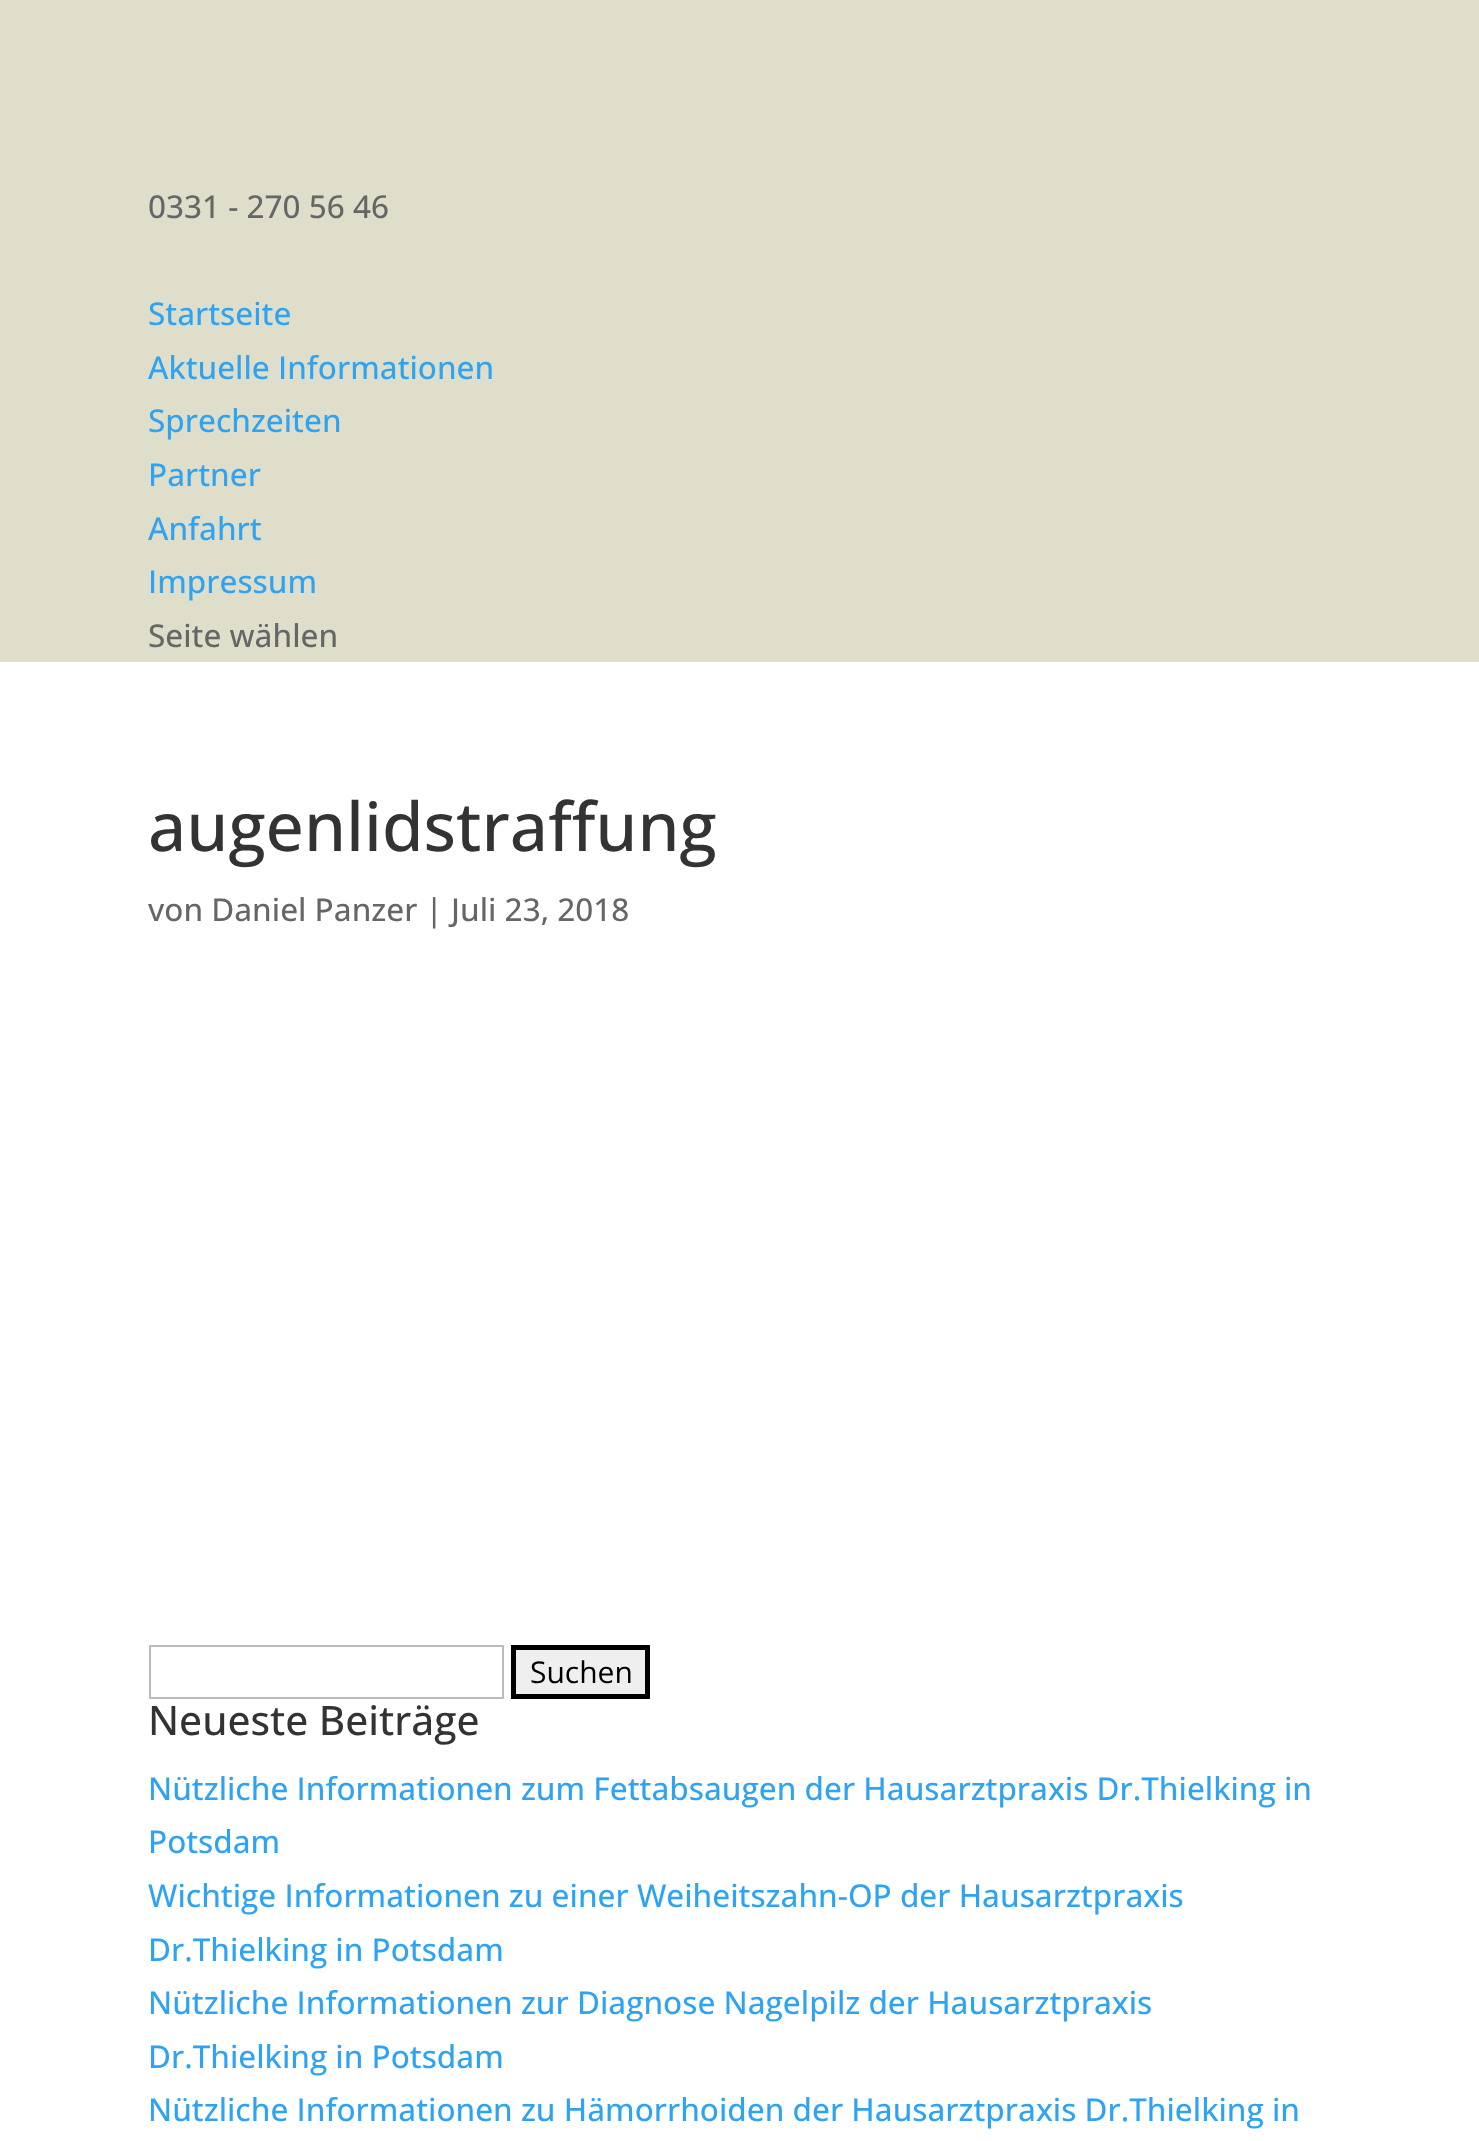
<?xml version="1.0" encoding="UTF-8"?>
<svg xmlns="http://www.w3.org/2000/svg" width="1479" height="2141">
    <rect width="100%" height="100%" fill="#DFDECA"/>
    <text x="148" y="218" font-family="Open Sans" font-size="31.5" font-weight="500" fill="#666666">0331 - 270 56 46</text>
    <text font-family="Open Sans" font-size="31.5" font-weight="500" fill="#2EA3F2">
        <tspan x="148" y="325">Startseite</tspan>
        <tspan x="148" y="379">Aktuelle Informationen</tspan>
        <tspan x="148" y="432">Sprechzeiten</tspan>
        <tspan x="148" y="486">Partner</tspan>
        <tspan x="148" y="540">Anfahrt</tspan>
        <tspan x="148" y="593">Impressum</tspan>
    </text>
    <text x="148" y="647" font-family="Open Sans" font-size="31.5" font-weight="500" fill="#666666">Seite wählen</text>
    <rect x="0" y="662" width="1479" height="1479" fill="#FFFFFF"/>
    <text x="148" y="851" font-family="Open Sans" font-size="67.5" font-weight="500" fill="#333333">augenlidstraffung</text>
    <text x="148" y="921" font-family="Open Sans" font-size="31.5" font-weight="500" fill="#666666">von Daniel Panzer | Juli 23, 2018</text>
    <rect x="150" y="1646" width="353" height="52" fill="none" stroke="#BBBBBB" stroke-width="2"/>
    <rect x="513.5" y="1647.5" width="134" height="49" fill="#EFEFEF" stroke="#000000" stroke-width="5"/>
    <text x="530" y="1683" font-family="Open Sans" font-size="30" fill="#000000">Suchen</text>
    <text x="148" y="1735" font-family="Open Sans" font-size="40.5" font-weight="500" fill="#333333">Neueste Beiträge</text>
    <text font-family="Open Sans" font-size="31.5" font-weight="500" fill="#2EA3F2">
        <tspan x="148" y="1800">Nützliche Informationen zum Fettabsaugen der Hausarztpraxis Dr.Thielking in</tspan>
        <tspan x="148" y="1853">Potsdam</tspan>
        <tspan x="148" y="1907">Wichtige Informationen zu einer Weiheitszahn-OP der Hausarztpraxis</tspan>
        <tspan x="148" y="1961">Dr.Thielking in Potsdam</tspan>
        <tspan x="148" y="2014">Nützliche Informationen zur Diagnose Nagelpilz der Hausarztpraxis</tspan>
        <tspan x="148" y="2068">Dr.Thielking in Potsdam</tspan>
        <tspan x="148" y="2121">Nützliche Informationen zu Hämorrhoiden der Hausarztpraxis Dr.Thielking in</tspan>
    </text>
</svg>
